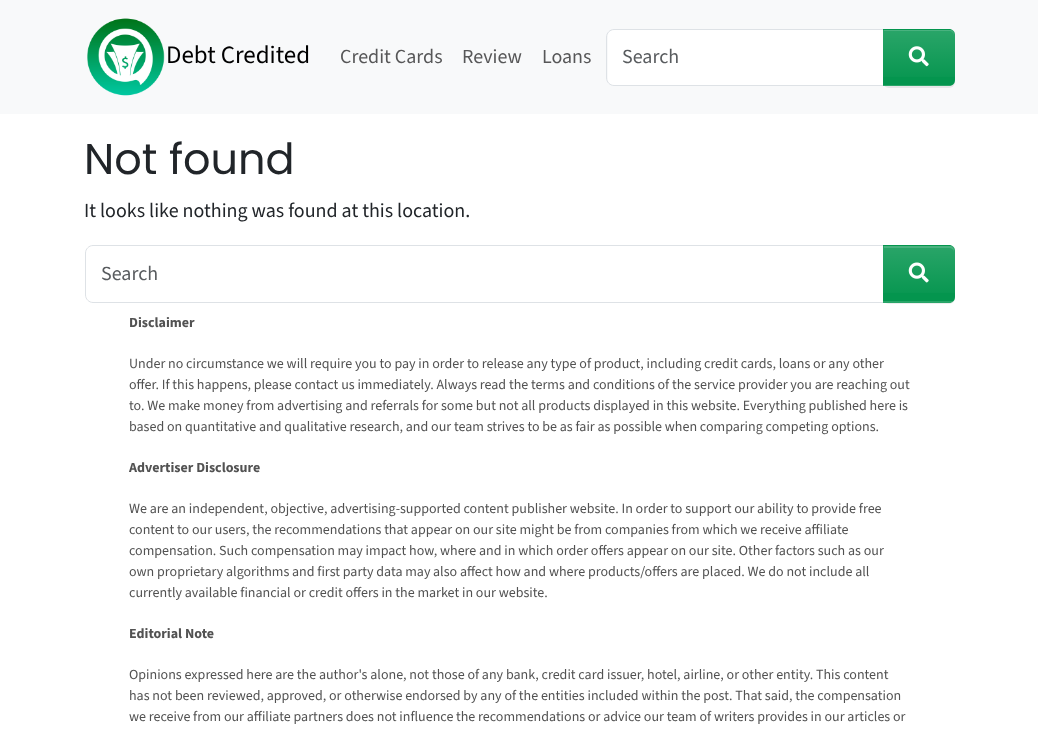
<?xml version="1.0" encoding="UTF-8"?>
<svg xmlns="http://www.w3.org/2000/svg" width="1038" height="735">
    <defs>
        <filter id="blur1" x="-50%" y="-200%" width="200%" height="500%"><feGaussianBlur stdDeviation="0.5"/></filter>
        <clipPath id="clip1"><path d="M 883 29 H 949 C 952.5 29 955 31.5 955 35 V 80 C 955 83.5 952.5 86 949 86 H 883 Z"/></clipPath>
        <linearGradient id="g1" gradientUnits="userSpaceOnUse" x1="919" y1="30" x2="919" y2="85"><stop offset="0" stop-color="#FFFFFF" stop-opacity="0.15"/><stop offset="1" stop-color="#FFFFFF" stop-opacity="0"/></linearGradient>
        <linearGradient id="g2" gradientUnits="userSpaceOnUse" x1="919" y1="85" x2="919" y2="140"><stop offset="0" stop-color="#FFFFFF" stop-opacity="0.15"/><stop offset="1" stop-color="#FFFFFF" stop-opacity="0"/></linearGradient>
        <clipPath id="clip2"><path d="M 883 245 H 949 C 952.5 245 955 247.5 955 251 V 297 C 955 300.5 952.5 303 949 303 H 883 Z"/></clipPath>
        <linearGradient id="g3" gradientUnits="userSpaceOnUse" x1="919" y1="246" x2="919" y2="301"><stop offset="0" stop-color="#FFFFFF" stop-opacity="0.15"/><stop offset="1" stop-color="#FFFFFF" stop-opacity="0"/></linearGradient>
        <linearGradient id="g4" gradientUnits="userSpaceOnUse" x1="919" y1="301" x2="919" y2="356"><stop offset="0" stop-color="#FFFFFF" stop-opacity="0.15"/><stop offset="1" stop-color="#FFFFFF" stop-opacity="0"/></linearGradient>
    </defs>
    <rect width="100%" height="100%" fill="#FFFFFF"/>
    <rect x="0" y="0" width="1038" height="114" fill="#F8F9FA"/>
    <image x="87" y="18" width="78" height="78" href="img_01.png"/>
    <text x="166" y="63" font-family="'Source Sans 3'" font-size="25" fill="#000000">Debt Credited</text>
    <text x="340" y="63" font-family="'Source Sans 3'" font-size="20" fill="#575758">Credit Cards</text>
    <text x="462" y="63" font-family="'Source Sans 3'" font-size="20" fill="#575758">Review</text>
    <text x="542" y="63" font-family="'Source Sans 3'" font-size="20" fill="#575758">Loans</text>
    <path d="M 614 30 H 883 V 85 H 614 C 610.5 85 608 82.5 608 79 V 36 C 608 32.5 610.5 30 614 30 Z" fill="#FFFFFF"/>
    <path d="M 614 29.5 H 883.5 V 85.5 H 614 C 610 85.5 606.5 82 606.5 78 V 37 C 606.5 33 610 29.5 614 29.5 Z" fill="none" stroke="#DEE2E6"/>
    <text x="622" y="63" font-family="'Source Sans 3'" font-size="20" fill="#595C5F">Search</text>
    <rect x="883" y="30" width="72" height="58" rx="6" fill="#000000" fill-opacity="0.07" filter="url(#blur1)"/>
    <path d="M 883 29 H 949 C 952.5 29 955 31.5 955 35 V 80 C 955 83.5 952.5 86 949 86 H 883 Z" fill="#04954E"/>
    <g clip-path="url(#clip1)">
        <rect x="883" y="30" width="72" height="47" fill="url(#g1)"/>
        <rect x="883" y="85" width="72" height="1" fill="url(#g2)"/>
    </g>
    <path d="M 884 31 H 949 C 952 31 954 33 954 36 V 35 C 954 32 952 30 949 30 H 884 Z" fill="#49B27F"/>
    <image x="908" y="46" width="21" height="21" href="img_02.png"/>
    <text x="84" y="174" font-family="Poppins" font-size="43" fill="#212529">Not found</text>
    <text x="84" y="217" font-family="'Source Sans 3'" font-size="20" fill="#212529">It looks like nothing was found at this location.</text>
    <path d="M 93 245.5 H 883.5 V 302.5 H 93 C 89 302.5 85.5 299 85.5 295 V 253 C 85.5 249 89 245.5 93 245.5 Z" fill="none" stroke="#DEE2E6"/>
    <text x="101" y="280" font-family="'Source Sans 3'" font-size="20" fill="#595C5F">Search</text>
    <rect x="883" y="246" width="72" height="58" rx="6" fill="#000000" fill-opacity="0.07" filter="url(#blur1)"/>
    <path d="M 883 245 H 949 C 952.5 245 955 247.5 955 251 V 297 C 955 300.5 952.5 303 949 303 H 883 Z" fill="#04954E"/>
    <g clip-path="url(#clip2)">
        <rect x="883" y="246" width="72" height="47" fill="url(#g3)"/>
        <rect x="883" y="301" width="72" height="2" fill="url(#g4)"/>
    </g>
    <path d="M 884 248 H 949 C 952 248 954 250 954 252 V 251 C 954 248 952 246 949 246 H 884 Z" fill="#49B27F"/>
    <image x="908" y="262" width="21" height="21" href="img_03.png"/>
    <text x="129" y="327" font-family="'Source Sans 3'" font-size="14" font-weight="700" fill="#525252">Disclaimer</text>
    <text font-family="'Source Sans 3'" font-size="14" fill="#525252">
        <tspan x="129" y="368">Under no circumstance we will require you to pay in order to release any type of product, including credit cards, loans or any other</tspan>
        <tspan x="129" y="389">offer. If this happens, please contact us immediately. Always read the terms and conditions of the service provider you are reaching out</tspan>
        <tspan x="129" y="410">to. We make money from advertising and referrals for</tspan>
    </text>
    <text x="441" y="410" font-family="'Source Sans 3'" font-size="14" fill="#525252">some but not all products displayed in this website. Everything published here is</text>
    <text x="129" y="431" font-family="'Source Sans 3'" font-size="14" fill="#525252">based on quantitative and qualitative research, and our team strives to be as fair as possible when comparing competing options.</text>
    <text x="129" y="472" font-family="'Source Sans 3'" font-size="14" font-weight="700" fill="#525252">Advertiser Disclosure</text>
    <text font-family="'Source Sans 3'" font-size="14" fill="#525252">
        <tspan x="129" y="513">We are an independent, objective, advertising-supported content publisher website. In order to support our ability to provide free</tspan>
        <tspan x="129" y="534">content to our users, the recommendations that appear on our site might be from companies from which we receive affiliate</tspan>
        <tspan x="129" y="555">compensation. Such compensation may impact how, where and in which order offers appear on our site. Other factors such as our</tspan>
        <tspan x="129" y="576">own proprietary algorithms and first party data may</tspan>
    </text>
    <text x="433" y="576" font-family="'Source Sans 3'" font-size="14" fill="#525252">also affect how and where products/offers are placed. We do not include all</text>
    <text x="129" y="597" font-family="'Source Sans 3'" font-size="14" fill="#525252">currently available financial or credit offers in the market in our website.</text>
    <text x="129" y="638" font-family="'Source Sans 3'" font-size="14" font-weight="700" fill="#525252">Editorial Note</text>
    <text font-family="'Source Sans 3'" font-size="14" fill="#525252">
        <tspan x="129" y="679">Opinions expressed here are the author's alone, not those of any bank, credit card issuer, hotel, airline, or other entity. This content</tspan>
        <tspan x="129" y="700">has not been reviewed, approved, or otherwise endorsed by any of the entities included within the post. That said, the compensation</tspan>
        <tspan x="129" y="721">we receive from our affiliate partners does not influence</tspan>
    </text>
    <text x="456" y="721" font-family="'Source Sans 3'" font-size="14" fill="#525252">the recommendations or advice our team of writers provides in our articles or</text>
</svg>
